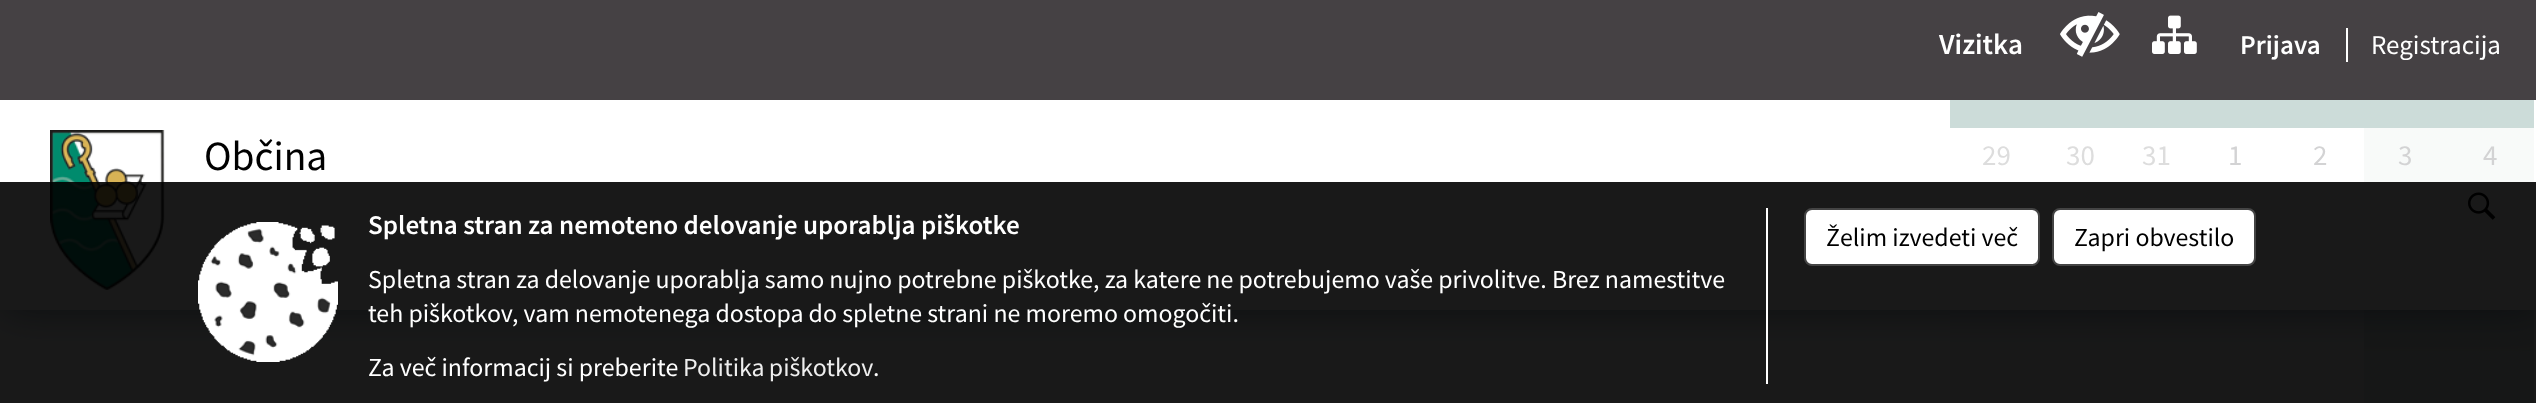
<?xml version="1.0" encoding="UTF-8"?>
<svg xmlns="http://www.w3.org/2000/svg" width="2536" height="403">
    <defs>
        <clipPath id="clip1"><rect x="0" y="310" width="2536" height="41"/></clipPath>
        <filter id="blur1" x="-50%" y="-200%" width="200%" height="500%"><feGaussianBlur stdDeviation="20"/></filter>
    </defs>
    <rect width="100%" height="100%" fill="#FFFFFF"/>
    <rect x="1950" y="310" width="414" height="93" fill="#F3F4F5"/>
    <rect x="1950" y="100" width="584" height="28" fill="#CCDCD9"/>
    <rect x="2364" y="128" width="170" height="58" fill="#F8FAF9"/>
    <rect x="2364" y="186" width="170" height="58" fill="#F8FAF9"/>
    <rect x="2364" y="244" width="170" height="58" fill="#F8FAF9"/>
    <rect x="2364" y="310" width="170" height="50" fill="#DBE4E3"/>
    <rect x="2364" y="302" width="170" height="8" fill="#F8FAF9"/>
    <rect x="2364" y="360" width="170" height="43" fill="#DBE4E3"/>
    <g clip-path="url(#clip1)">
        <rect x="4" y="0" width="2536" height="310" fill="#71899F" filter="url(#blur1)"/>
    </g>
    <rect x="0" y="0" width="2536" height="100" fill="#454144"/>
    <text x="1939" y="54" font-family="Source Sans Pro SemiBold" font-size="29" font-weight="600" fill="#FFFFFF">Vizitka</text>
    <image x="2060" y="12" width="60" height="45" href="img_01.png"/>
    <image x="2152" y="15" width="45" height="39" href="img_02.png"/>
    <text x="2240" y="54" font-family="Source Sans Pro SemiBold" font-size="27" font-weight="600" fill="#FFFFFF">Prijava</text>
    <rect x="2346" y="28" width="2" height="34" fill="#FFFFFF"/>
    <text x="2371" y="54" font-family="Source Sans Pro" font-size="27" fill="#FFFFFF">Registracija</text>
    <image x="50" y="130" width="115" height="160" href="img_03.png"/>
    <text x="204" y="170" font-family="Source Sans Pro" font-size="41.5" fill="#000000">Občina</text>
    <image x="2468" y="192" width="28" height="28" href="img_04.png"/>
    <text x="1982" y="165" font-family="Source Sans Pro" font-size="29" fill="#DDDDDD">29</text>
    <text x="2066" y="165" font-family="Source Sans Pro" font-size="29" fill="#DDDDDD">30</text>
    <text x="2142" y="165" font-family="Source Sans Pro" font-size="29" fill="#DDDDDD">31</text>
    <text x="2228" y="165" font-family="Source Sans Pro" font-size="29" fill="#D3D3D4">1</text>
    <text x="2313" y="165" font-family="Source Sans Pro" font-size="29" fill="#D3D3D4">2</text>
    <text x="2398" y="165" font-family="Source Sans Pro" font-size="29" fill="#D3D3D4">3</text>
    <text x="2483" y="165" font-family="Source Sans Pro" font-size="29" fill="#D3D3D4">4</text>
    <rect x="0" y="182" width="2536" height="221" fill="#000000" fill-opacity="0.9"/>
    <image x="198" y="222" width="140" height="140" href="img_05.png"/>
    <rect x="1766" y="208" width="2" height="176" fill="#FFFFFF"/>
    <text x="368" y="234" font-family="Source Sans Pro SemiBold" font-size="27.1" font-weight="600" fill="#FFFFFF">Spletna stran za nemoteno delovanje uporablja piškotke</text>
    <text font-family="Source Sans Pro" font-size="25.85" fill="#FFFFFF">
        <tspan x="368" y="288">Spletna stran za delovanje uporablja samo nujno potrebne piškotke, za katere ne potrebujemo vaše privolitve. Brez namestitve</tspan>
        <tspan x="368" y="322">teh piškotkov, vam nemotenega dostopa do spletne strani ne moremo omogočiti.</tspan>
    </text>
    <text x="368" y="376" font-family="Source Sans Pro" font-size="25.85" fill="#FFFFFF">Za več informacij si preberite</text>
    <text x="683" y="376" word-spacing="-1" font-family="Source Sans Pro" font-size="25.85" fill="#EEEEEE">Politika piškotkov</text>
    <text x="873" y="376" font-family="Source Sans Pro" font-size="25.85" fill="#FFFFFF">.</text>
    <rect x="1805" y="209" width="234" height="56" rx="7" fill="#FFFFFF" stroke="#444444" stroke-width="2"/>
    <text x="1826" y="246" font-family="Source Sans Pro" font-size="25.85" fill="#000000">Želim izvedeti več</text>
    <rect x="2053" y="209" width="202" height="56" rx="7" fill="#FFFFFF" stroke="#444444" stroke-width="2"/>
    <text x="2074" y="246" font-family="Source Sans Pro" font-size="25.85" fill="#000000">Zapri obvestilo</text>
</svg>
